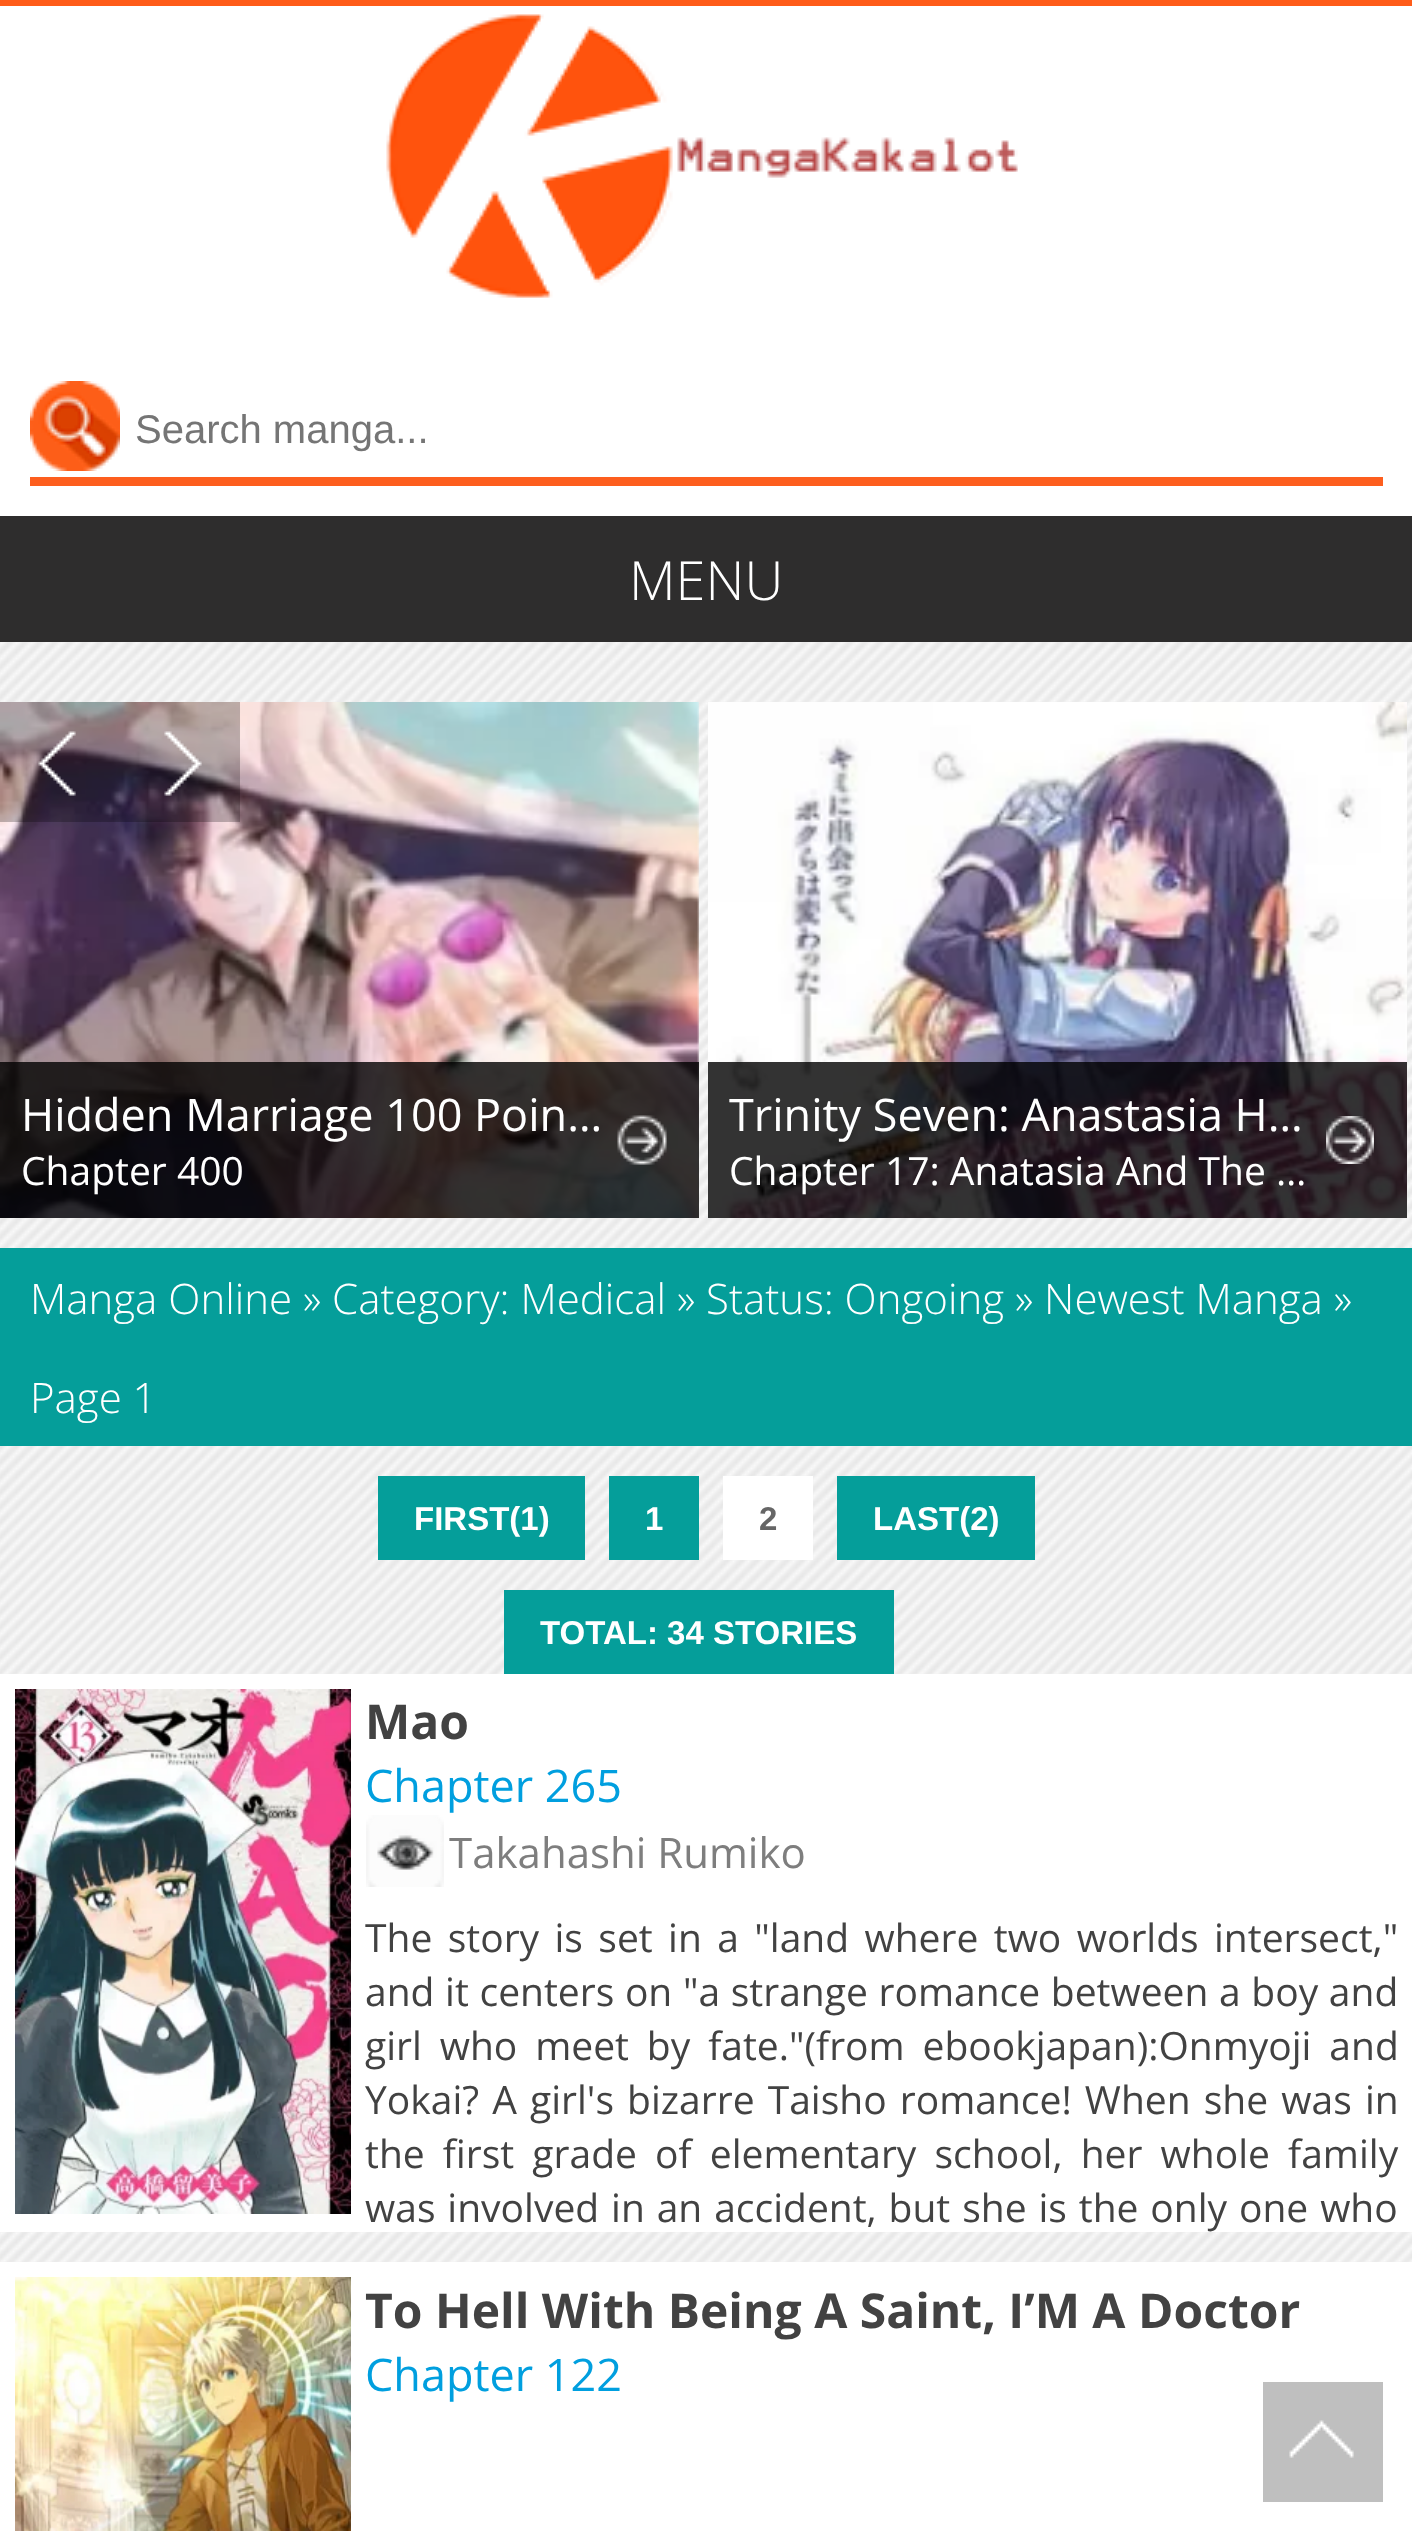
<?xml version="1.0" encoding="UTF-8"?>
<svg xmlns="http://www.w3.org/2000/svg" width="1412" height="2531">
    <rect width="100%" height="100%" fill="#FFFFFF"/>
    <image x="0" y="642" width="1412" height="1620" href="img_01.png"/>
    <rect x="0" y="0" width="1412" height="6" fill="#FF5C19"/>
    <image x="386" y="14" width="632" height="284" href="img_02.png"/>
    <image x="30" y="381" width="90" height="90" href="img_03.png"/>
    <rect x="30" y="477" width="1353" height="9" fill="#FD5E1E"/>
    <text x="135" y="443" font-family="Liberation Sans" font-size="40" fill="#757575">Search manga...</text>
    <rect x="0" y="516" width="1412" height="126" fill="#2E2D2D"/>
    <text x="629" y="600" font-family="Open Sans" font-size="54" font-weight="300" fill="#FFFFFF">MENU</text>
    <image x="0" y="702" width="699" height="516" href="img_06.png"/>
    <image x="0" y="702" width="120" height="120" href="img_04.png"/>
    <image x="120" y="702" width="120" height="120" href="img_05.png"/>
    <rect x="0" y="1062" width="699" height="156" fill="#000000" fill-opacity="0.8"/>
    <image x="617" y="1115" width="50" height="50" href="img_07.png"/>
    <text x="21" y="1131" font-family="Open Sans" font-size="45" fill="#FFFFFF">Hidden Marriage 100 Poin…</text>
    <text x="21" y="1185" font-family="Open Sans" font-size="39" fill="#FFFFFF">Chapter 400</text>
    <image x="708" y="702" width="699" height="516" href="img_08.png"/>
    <rect x="708" y="1062" width="699" height="156" fill="#000000" fill-opacity="0.8"/>
    <image x="1326" y="1116" width="48" height="48" href="img_09.png"/>
    <text x="729" y="1131" font-family="Open Sans" font-size="45" fill="#FFFFFF">Trinity Seven: Anastasia H…</text>
    <text x="729" y="1185" font-family="Open Sans" font-size="39" fill="#FFFFFF">Chapter 17: Anatasia And The …</text>
    <rect x="0" y="1248" width="1412" height="198" fill="#059E9A"/>
    <text x="30" y="1314" font-family="Open Sans" font-size="42" font-weight="300" fill="#FFFFFF">Manga Online » Category: Medical » Status: Ongoing » Newest Manga »</text>
    <text x="30" y="1413" font-family="Open Sans" font-size="42" font-weight="300" fill="#FFFFFF">Page 1</text>
    <rect x="378" y="1476" width="207" height="84" fill="#059E9A"/>
    <text x="414" y="1530" font-family="Liberation Sans" font-size="33" font-weight="700" fill="#FFFFFF">FIRST(1)</text>
    <rect x="609" y="1476" width="90" height="84" fill="#059E9A"/>
    <text x="645" y="1530" font-family="Liberation Sans" font-size="33" font-weight="700" fill="#FFFFFF">1</text>
    <rect x="723" y="1476" width="90" height="84" fill="#FFFFFF"/>
    <text x="759" y="1530" font-family="Liberation Sans" font-size="33" font-weight="700" fill="#666666">2</text>
    <rect x="837" y="1476" width="198" height="84" fill="#059E9A"/>
    <text x="873" y="1530" font-family="Liberation Sans" font-size="33" font-weight="700" fill="#FFFFFF">LAST(2)</text>
    <rect x="504" y="1590" width="390" height="84" fill="#059E9A"/>
    <text x="540" y="1644" font-family="Liberation Sans" font-size="33" font-weight="700" fill="#FFFFFF">TOTAL: 34 STORIES</text>
    <rect x="0" y="1674" width="1412" height="558" fill="#FFFFFF"/>
    <image x="15" y="1689" width="336" height="525" href="img_10.png"/>
    <text x="365" y="1739" font-family="Open Sans" font-size="48" font-weight="700" fill="#424242">Mao</text>
    <text x="365" y="1802" font-family="Open Sans" font-size="45" fill="#009FDF">Chapter 265</text>
    <image x="366" y="1815" width="78" height="72" href="img_11.png"/>
    <text x="449" y="1868" font-family="Open Sans" font-size="42" fill="#7E7E7E">Takahashi Rumiko</text>
    <text font-family="Open Sans" font-size="39" fill="#424242">
        <tspan x="365" y="1952" word-spacing="5.25">The story is set in a "land where two worlds intersect,"</tspan>
        <tspan x="365" y="2006" word-spacing="0.5">and it centers on "a strange romance between a boy and</tspan>
        <tspan x="365" y="2060" word-spacing="7.75">girl who meet by fate."(from ebookjapan):Onmyoji and</tspan>
        <tspan x="365" y="2114" word-spacing="3">Yokai? A girl's bizarre Taisho romance! When she was in</tspan>
        <tspan x="365" y="2168" word-spacing="8">the first grade of elementary school, her whole family</tspan>
        <tspan x="365" y="2222" word-spacing="1.75">was involved in an accident, but she is the only one who</tspan>
    </text>
    <image x="15" y="2277" width="336" height="254" href="img_12.png"/>
    <text x="365" y="2328" font-family="Open Sans" font-size="48" font-weight="700" fill="#424242">To Hell With Being A Saint, I’M A Doctor</text>
    <text x="365" y="2391" font-family="Open Sans" font-size="45" fill="#009FDF">Chapter 122</text>
    <image x="1263" y="2382" width="120" height="120" href="img_13.png"/>
</svg>
